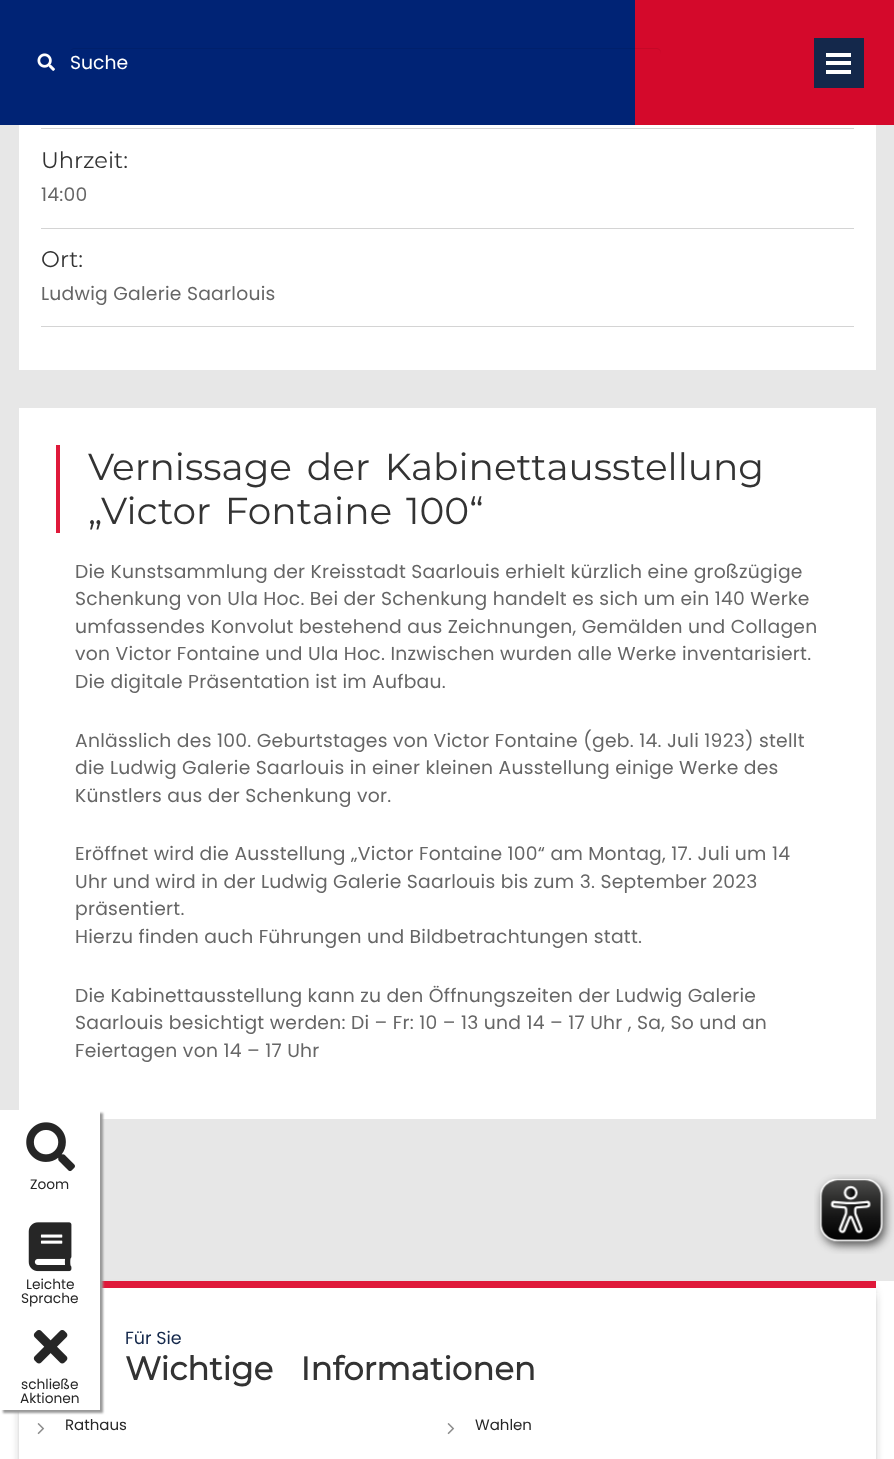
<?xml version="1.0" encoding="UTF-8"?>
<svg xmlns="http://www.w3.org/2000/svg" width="894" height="1459">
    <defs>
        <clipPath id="clip1"><path d="M 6 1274 H 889 V 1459 H 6 Z M 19 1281 H 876 V 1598 H 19 Z" clip-rule="evenodd"/></clipPath>
        <filter id="blur1" x="-50%" y="-200%" width="200%" height="500%"><feGaussianBlur stdDeviation="6"/></filter>
        <filter id="blur2" x="-50%" y="-200%" width="200%" height="500%"><feGaussianBlur stdDeviation="1"/></filter>
    </defs>
    <rect width="100%" height="100%" fill="#FFFFFF"/>
    <rect x="0" y="0" width="635" height="125" fill="#002375"/>
    <image x="37" y="53" width="18" height="18" href="img_01.png"/>
    <rect x="635" y="0" width="259" height="125" fill="#D4092B"/>
    <path d="M 75 49 H 656 C 659 49 661 51 661 54 V 53 C 661 50 659 48 656 48 H 75 C 72 48 70 50 70 53 V 54 C 70 51 72 49 75 49 Z" fill="#000000" fill-opacity="0.07"/>
    <text x="70" y="69" font-family="Poppins" font-size="18.75" fill="#FFFFFF">Suche</text>
    <rect x="814" y="38" width="50" height="50" fill="#14284B"/>
    <rect x="826" y="70" width="25" height="4" fill="#FFFFFF"/>
    <rect x="826" y="61" width="25" height="4" fill="#FFFFFF"/>
    <rect x="826" y="53" width="25" height="4" fill="#FFFFFF"/>
    <rect x="0" y="125" width="894" height="1156" fill="#E7E7E7"/>
    <rect x="19" y="125" width="857" height="245" fill="#FFFFFF"/>
    <rect x="41" y="128" width="813" height="1" fill="#D4D4D4"/>
    <rect x="41" y="228" width="813" height="1" fill="#D4D4D4"/>
    <text x="41" y="168" font-family="Montserrat" font-size="22.5" fill="#333333">Uhrzeit:</text>
    <text x="41" y="201" font-family="Poppins" font-size="18.75" letter-spacing="0.25" fill="#666666">14:00</text>
    <rect x="41" y="326" width="813" height="1" fill="#D4D4D4"/>
    <text x="41" y="267" font-family="Montserrat" font-size="22.5" fill="#333333">Ort:</text>
    <text x="41" y="300" font-family="Poppins" font-size="18.75" letter-spacing="0.25" fill="#666666">Ludwig Galerie Saarlouis</text>
    <rect x="19" y="408" width="857" height="711" fill="#FFFFFF"/>
    <rect x="56" y="445" width="4" height="88" fill="#DF193A"/>
    <text font-family="Montserrat" font-size="37.5" fill="#333333">
        <tspan x="88" y="480" word-spacing="5">Vernissage der Kabinettausstellung</tspan>
        <tspan x="88" y="524" word-spacing="4">„Victor Fontaine 100“</tspan>
    </text>
    <text font-family="Poppins" font-size="18.75" letter-spacing="0.25" fill="#666666">
        <tspan x="75" y="578">Die Kunstsammlung der Kreisstadt Saarlouis erhielt kürzlich eine großzügige</tspan>
        <tspan x="75" y="605">Schenkung von Ula Hoc. Bei der Schenkung handelt es sich um ein 140 Werke</tspan>
        <tspan x="75" y="633">umfassendes Konvolut bestehend aus Zeichnungen, Gemälden und Collagen</tspan>
        <tspan x="75" y="660">von Victor Fontaine und Ula Hoc. Inzwischen wurden alle Werke inventarisiert.</tspan>
        <tspan x="75" y="688">Die digitale Präsentation ist im Aufbau.</tspan>
    </text>
    <text font-family="Poppins" font-size="18.75" letter-spacing="0.25" fill="#666666">
        <tspan x="75" y="747">Anlässlich des 100. Geburtstages von Victor Fontaine (geb. 14. Juli 1923) stellt</tspan>
        <tspan x="75" y="774">die Ludwig Galerie Saarlouis in einer kleinen Ausstellung einige Werke des</tspan>
        <tspan x="75" y="802">Künstlers aus der Schenkung vor.</tspan>
    </text>
    <text font-family="Poppins" font-size="18.75" letter-spacing="0.25" fill="#666666">
        <tspan x="75" y="860">Eröffnet wird die Ausstellung „Victor Fontaine 100“ am Montag, 17. Juli um 14</tspan>
        <tspan x="75" y="888">Uhr und wird in der Ludwig Galerie Saarlouis bis zum 3. September 2023</tspan>
        <tspan x="75" y="915">präsentiert.</tspan>
        <tspan x="75" y="943">Hierzu finden auch Führungen und Bildbetrachtungen statt.</tspan>
    </text>
    <text font-family="Poppins" font-size="18.75" letter-spacing="0.25" fill="#666666">
        <tspan x="75" y="1002">Die Kabinettausstellung kann zu den Öffnungszeiten der Ludwig Galerie</tspan>
        <tspan x="75" y="1029">Saarlouis besichtigt werden: Di – Fr: 10 – 13 und 14 – 17 Uhr , Sa, So und an</tspan>
        <tspan x="75" y="1057">Feiertagen von 14 – 17 Uhr</tspan>
    </text>
    <g clip-path="url(#clip1)">
        <rect x="25" y="1293" width="845" height="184" fill="#393333" filter="url(#blur1)"/>
    </g>
    <rect x="101" y="1281" width="775" height="7" fill="#DF193A"/>
    <text x="125" y="1344" font-family="Poppins" font-size="17.5" fill="#14284B">Für Sie</text>
    <text x="125" y="1380" word-spacing="19" font-family="Montserrat" font-size="32.5" font-weight="700" fill="#333333">Wichtige Informationen</text>
    <image x="37" y="1423" width="8" height="12" href="img_02.png"/>
    <text x="65" y="1430" font-family="Poppins" font-size="15" fill="#262626">Rathaus</text>
    <image x="447" y="1423" width="8" height="12" href="img_02.png"/>
    <text x="475" y="1430" font-family="Poppins" font-size="15" fill="#262626">Wahlen</text>
    <image x="814" y="1174" width="80" height="80" href="img_03.png"/>
    <rect x="3" y="1113" width="100" height="300" fill="#999999" filter="url(#blur2)"/>
    <rect x="0" y="1110" width="100" height="300" fill="#FFFFFF"/>
    <image x="26" y="1122" width="49" height="50" href="img_04.png"/>
    <text x="30" y="1189" font-family="Poppins" font-size="13.75" fill="#262626">Zoom</text>
    <image x="28" y="1222" width="44" height="50" href="img_05.png"/>
    <text x="26" y="1289" font-family="Poppins" font-size="13.75" fill="#262626">Leichte</text>
    <text x="21" y="1303" font-family="Poppins" font-size="13.75" fill="#262626">Sprache</text>
    <image x="33" y="1330" width="35" height="34" href="img_06.png"/>
    <text x="21" y="1389" font-family="Poppins" font-size="13.75" fill="#262626">schließe</text>
    <text x="20" y="1403" font-family="Poppins" font-size="13.75" fill="#262626">Aktionen</text>
</svg>
